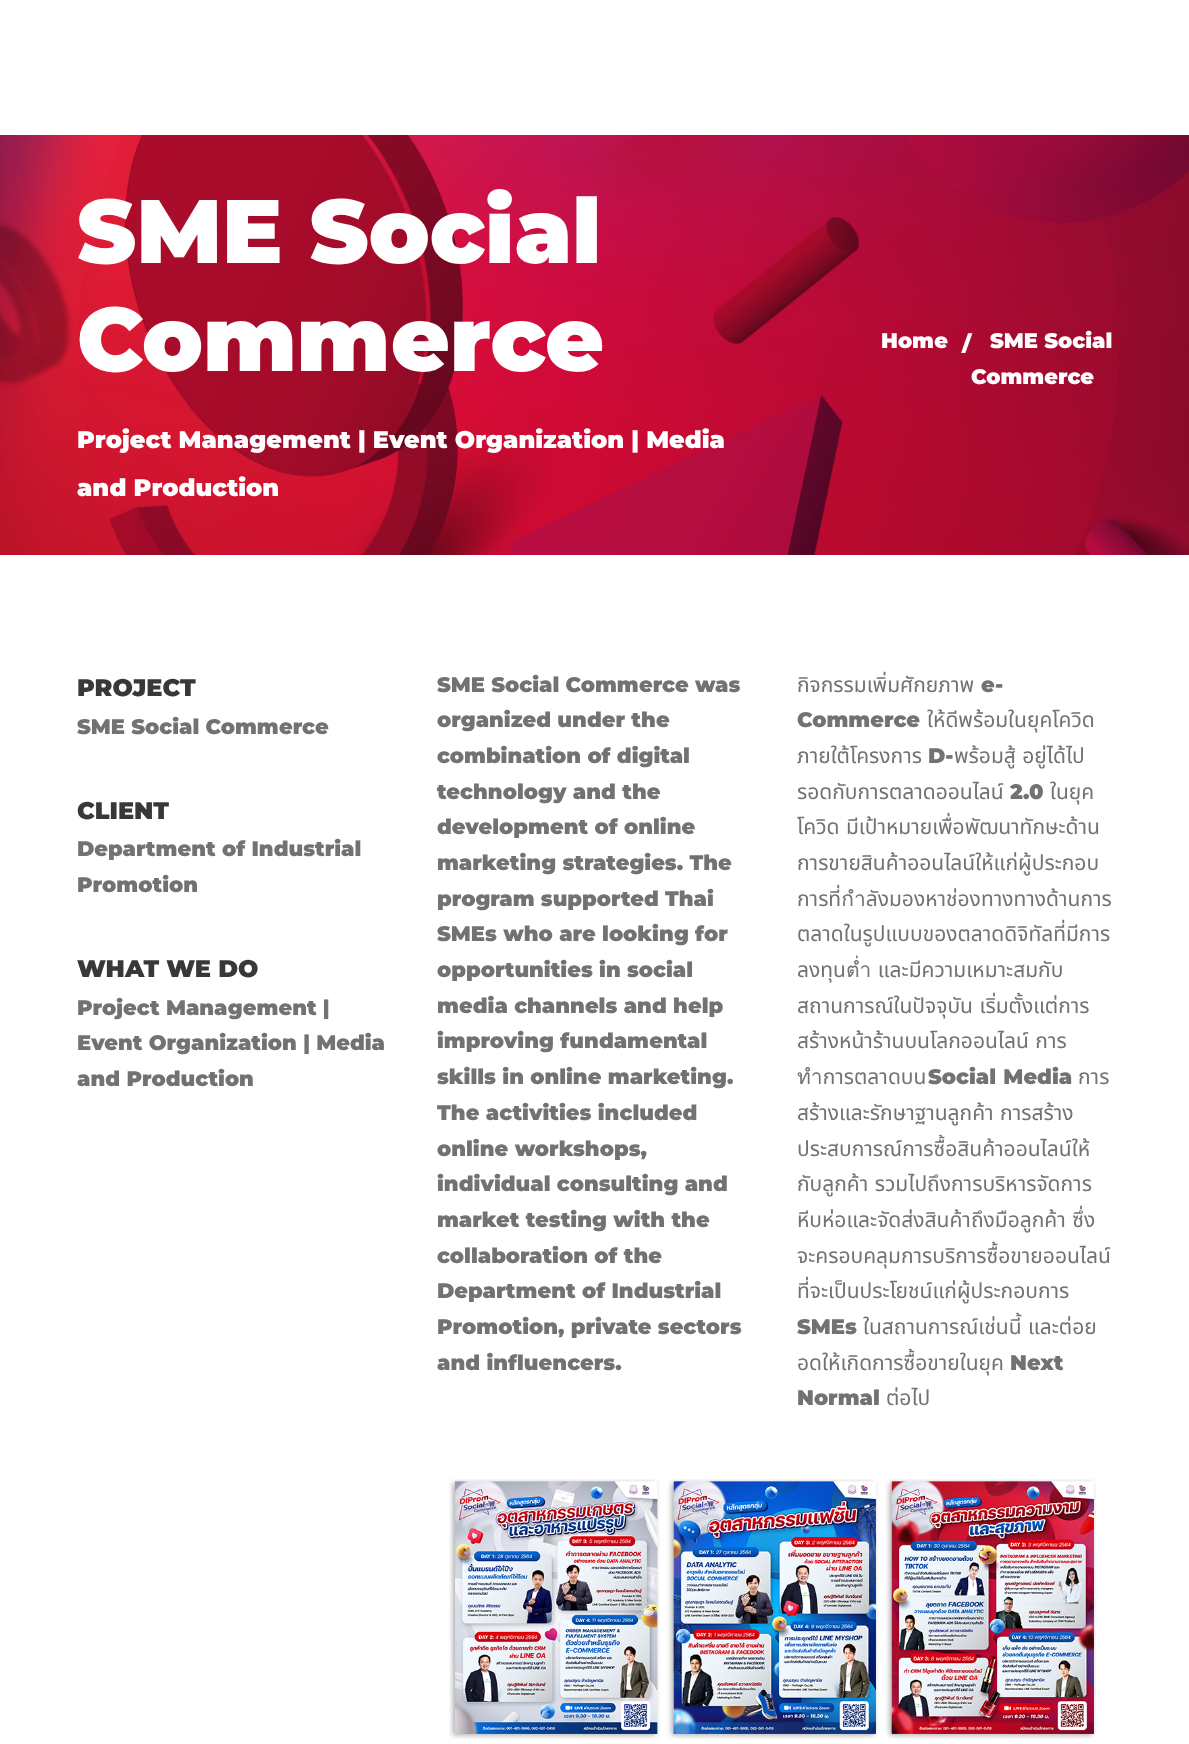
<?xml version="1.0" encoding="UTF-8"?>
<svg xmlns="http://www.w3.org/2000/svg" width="1189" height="1744">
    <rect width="100%" height="100%" fill="#FFFFFF"/>
    <image x="0" y="135" width="1189" height="420" href="img_01.png"/>
    <text font-family="Montserrat" font-size="90" font-weight="900" fill="#FFFFFF">
        <tspan x="77" y="263">SME Social</tspan>
        <tspan x="77" y="371">Commerce</tspan>
    </text>
    <text x="77" y="448" font-family="Montserrat" font-size="24" font-weight="900" fill="#FFFFFF">Project Management | Event Organization | Media</text>
    <text x="77" y="496" font-family="Montserrat" font-size="24" font-weight="900" fill="#FFFFFF">and Production</text>
    <text x="881" y="348" font-family="Montserrat" font-size="21" font-weight="900" fill="#FFFFFF">Home</text>
    <text x="962" y="351" font-family="Montserrat" font-size="21" font-weight="900" fill="#FFFFFF">/</text>
    <text x="990" y="348" font-family="Montserrat" font-size="21" font-weight="900" fill="#FFFFFF">SME Social</text>
    <text x="971" y="384" font-family="Montserrat" font-size="21" font-weight="900" fill="#FFFFFF">Commerce</text>
    <text x="77" y="696" font-family="Montserrat" font-size="24" font-weight="900" fill="#383838">PROJECT</text>
    <text x="77" y="734" font-family="Montserrat" font-size="21" font-weight="900" fill="#727272">SME Social Commerce</text>
    <text x="77" y="819" font-family="Montserrat" font-size="24" font-weight="900" fill="#383838">CLIENT</text>
    <text font-family="Montserrat" font-size="21" font-weight="900" fill="#727272">
        <tspan x="77" y="856">Department of Industrial</tspan>
        <tspan x="77" y="892">Promotion</tspan>
    </text>
    <text x="77" y="977" font-family="Montserrat" font-size="24" font-weight="900" fill="#383838">WHAT WE DO</text>
    <text font-family="Montserrat" font-size="21" font-weight="900" fill="#727272">
        <tspan x="77" y="1015">Project Management |</tspan>
        <tspan x="77" y="1050">Event Organization | Media</tspan>
        <tspan x="77" y="1086">and Production</tspan>
    </text>
    <text font-family="Montserrat" font-size="21" font-weight="900" fill="#727272">
        <tspan x="437" y="692">SME Social Commerce was</tspan>
        <tspan x="437" y="727">organized under the</tspan>
        <tspan x="437" y="763">combination of digital</tspan>
        <tspan x="437" y="799">technology and the</tspan>
        <tspan x="437" y="834">development of online</tspan>
        <tspan x="437" y="870">marketing strategies. The</tspan>
        <tspan x="437" y="906">program supported Thai</tspan>
        <tspan x="437" y="941">SMEs who are looking for</tspan>
        <tspan x="437" y="977">opportunities in social</tspan>
        <tspan x="437" y="1013">media channels and help</tspan>
        <tspan x="437" y="1048">improving fundamental</tspan>
        <tspan x="437" y="1084">skills in online marketing.</tspan>
        <tspan x="437" y="1120">The activities included</tspan>
        <tspan x="437" y="1156">online workshops,</tspan>
        <tspan x="437" y="1191">individual consulting and</tspan>
        <tspan x="437" y="1227">market testing with the</tspan>
        <tspan x="437" y="1263">collaboration of the</tspan>
        <tspan x="437" y="1298">Department of Industrial</tspan>
        <tspan x="437" y="1334">Promotion, private sectors</tspan>
        <tspan x="437" y="1370">and influencers.</tspan>
    </text>
    <text x="797" y="692" font-family="Noto Sans Thai" font-size="21" fill="#727272">กิจกรรมเพิ่มศักยภาพ</text>
    <text x="981" y="692" font-family="Montserrat" font-size="21" font-weight="900" fill="#727272">e-</text>
    <text x="797" y="727" font-family="Montserrat" font-size="21" font-weight="900" fill="#727272">Commerce</text>
    <text x="927" y="727" font-family="Noto Sans Thai" font-size="21" fill="#727272">ให้ดีพร้อมในยุคโควิด</text>
    <text x="797" y="763" font-family="Noto Sans Thai" font-size="21" fill="#727272">ภายใต้โครงการ</text>
    <text x="928" y="763" font-family="Montserrat" font-size="21" font-weight="900" fill="#727272">D-</text>
    <text x="954" y="763" word-spacing="1" font-family="Noto Sans Thai" font-size="21" fill="#727272">พร้อมสู้ อยู่ได้ไป</text>
    <text x="797" y="799" font-family="Noto Sans Thai" font-size="21" fill="#727272">รอดกับการตลาดออนไลน์</text>
    <text x="1010" y="799" font-family="Montserrat" font-size="21" font-weight="900" fill="#727272">2.0</text>
    <text x="1050" y="799" font-family="Noto Sans Thai" font-size="21" fill="#727272">ในยุค</text>
    <text font-family="Noto Sans Thai" font-size="21" fill="#727272">
        <tspan x="797" y="834" word-spacing="1">โควิด มีเป้าหมายเพื่อพัฒนาทักษะด้าน</tspan>
        <tspan x="797" y="870">การขายสินค้าออนไลน์ให้แก่ผู้ประกอบ</tspan>
        <tspan x="797" y="906">การที่กำลังมองหาช่องทางทางด้านการ</tspan>
        <tspan x="797" y="941">ตลาดในรูปแบบของตลาดดิจิทัลที่มีการ</tspan>
        <tspan x="797" y="977" word-spacing="1">ลงทุนต่ำ และมีความเหมาะสมกับ</tspan>
        <tspan x="797" y="1013" word-spacing="1">สถานการณ์ในปัจจุบัน เริ่มตั้งแต่การ</tspan>
        <tspan x="797" y="1048" word-spacing="1">สร้างหน้าร้านบนโลกออนไลน์ การ</tspan>
        <tspan x="797" y="1084">ทำการตลาดบน</tspan>
    </text>
    <text x="928" y="1084" word-spacing="1" font-family="Montserrat" font-size="21" font-weight="900" fill="#727272">Social Media</text>
    <text x="1078" y="1084" font-family="Noto Sans Thai" font-size="21" fill="#727272">การ</text>
    <text font-family="Noto Sans Thai" font-size="21" fill="#727272">
        <tspan x="797" y="1120" word-spacing="1">สร้างและรักษาฐานลูกค้า การสร้าง</tspan>
        <tspan x="797" y="1156">ประสบการณ์การซื้อสินค้าออนไลน์ให้</tspan>
        <tspan x="797" y="1191" word-spacing="1">กับลูกค้า รวมไปถึงการบริหารจัดการ</tspan>
        <tspan x="797" y="1227" word-spacing="1">หีบห่อและจัดส่งสินค้าถึงมือลูกค้า ซึ่ง</tspan>
        <tspan x="797" y="1263">จะครอบคลุมการบริการซื้อขายออนไลน์</tspan>
        <tspan x="797" y="1298">ที่จะเป็นประโยชน์แก่ผู้ประกอบการ</tspan>
    </text>
    <text x="797" y="1334" font-family="Montserrat" font-size="21" font-weight="900" fill="#727272">SMEs</text>
    <text x="863" y="1334" word-spacing="1" font-family="Noto Sans Thai" font-size="21" fill="#727272">ในสถานการณ์เช่นนี้ และต่อย</text>
    <text x="797" y="1370" font-family="Noto Sans Thai" font-size="21" fill="#727272">อดให้เกิดการซื้อขายในยุค</text>
    <text x="1010" y="1370" font-family="Montserrat" font-size="21" font-weight="900" fill="#727272">Next</text>
    <text x="797" y="1405" font-family="Montserrat" font-size="21" font-weight="900" fill="#727272">Normal</text>
    <text x="886" y="1405" font-family="Noto Sans Thai" font-size="21" fill="#727272">ต่อไป</text>
    <image x="449" y="1479" width="647" height="260" href="img_02.png"/>
</svg>
